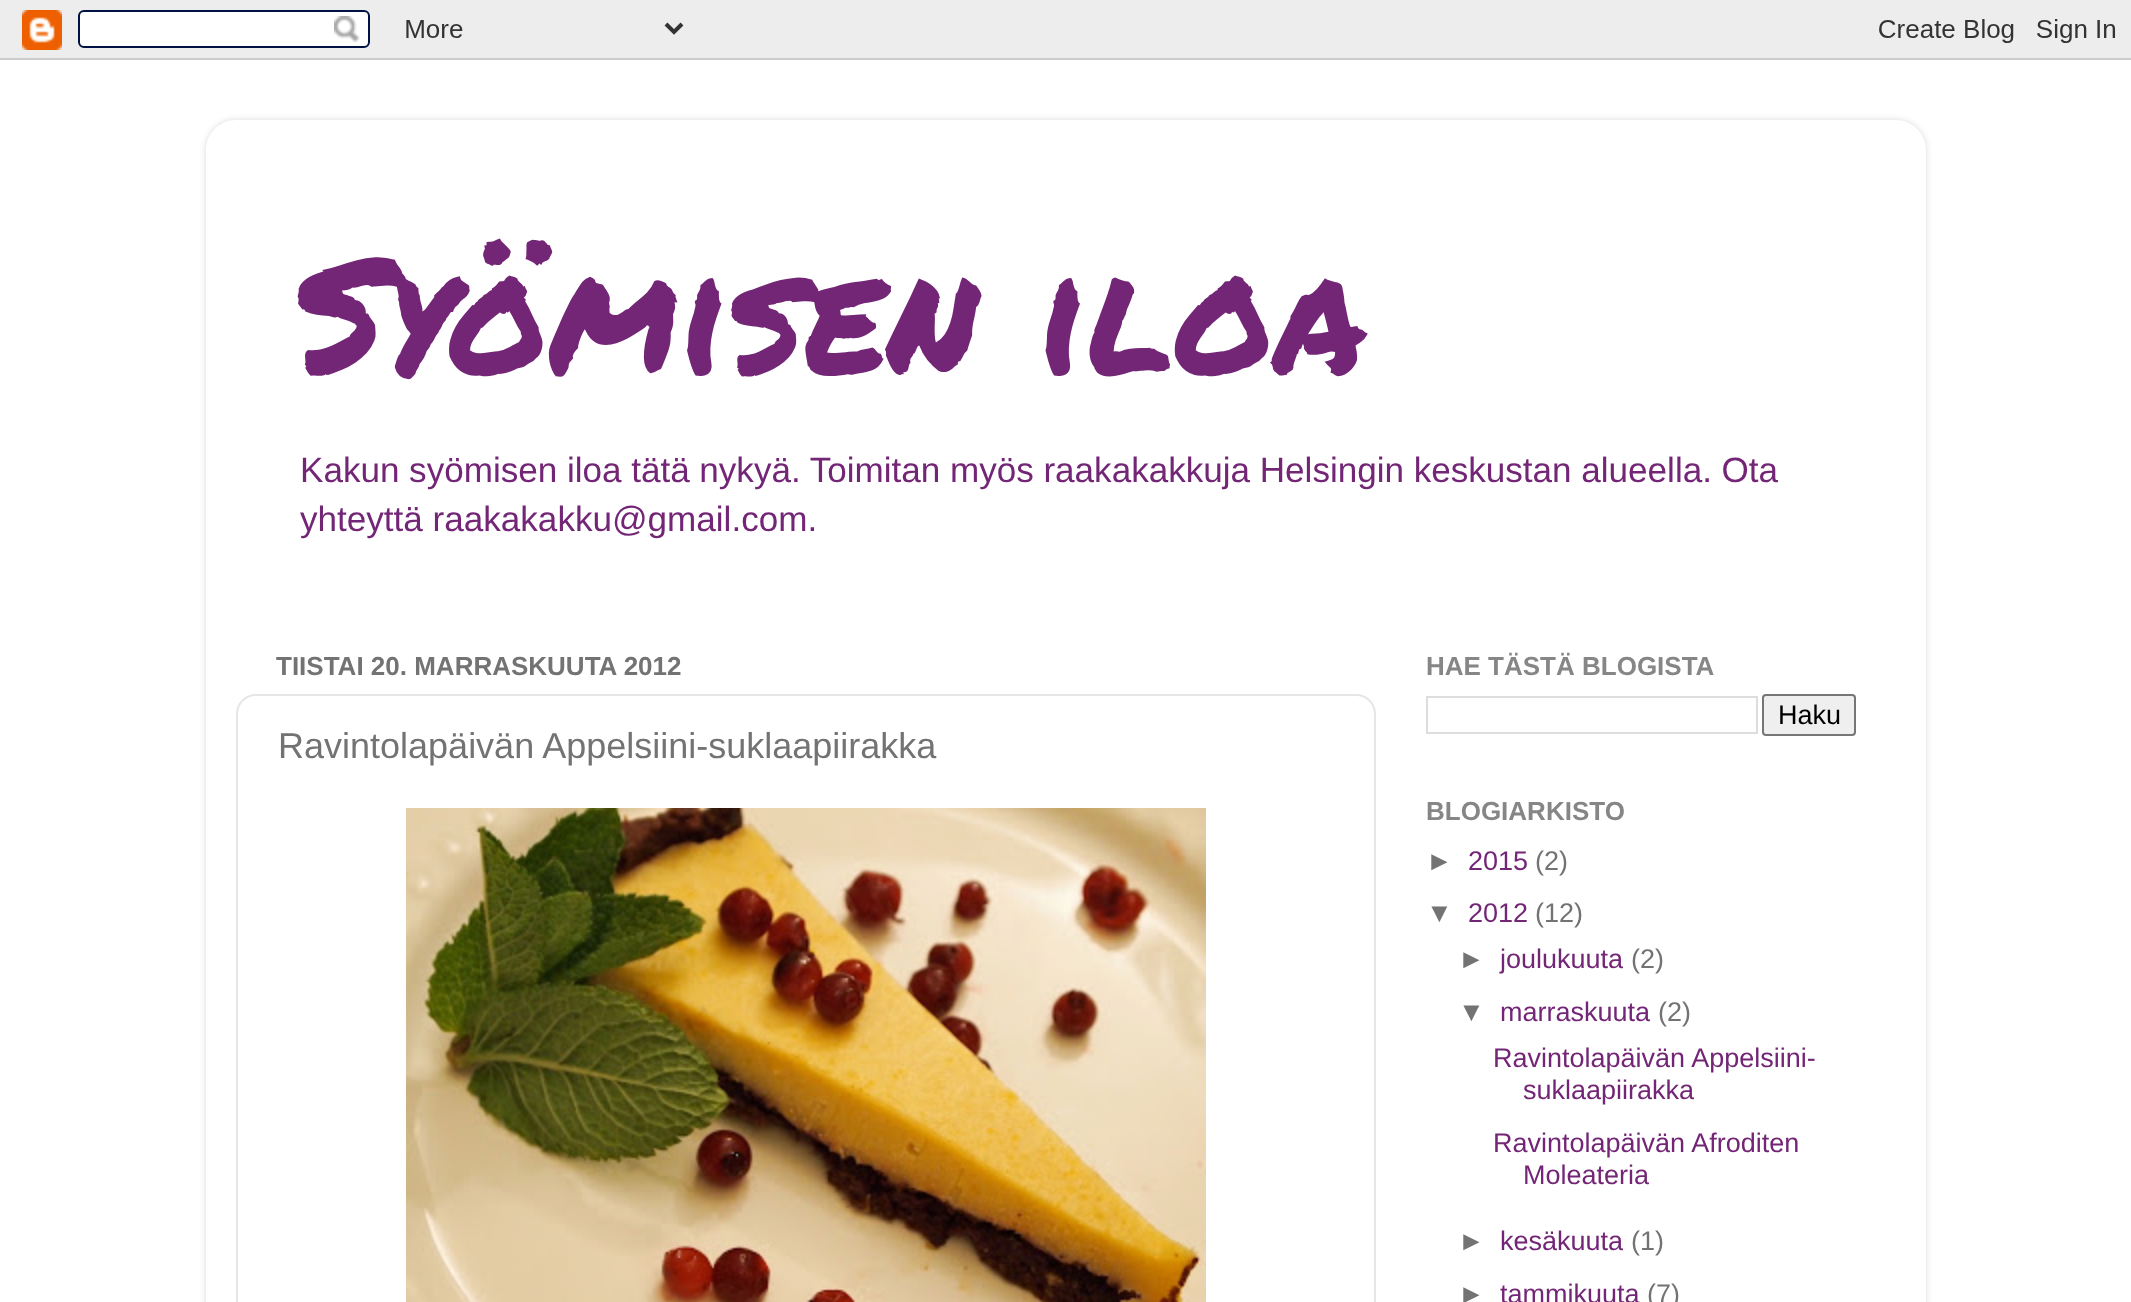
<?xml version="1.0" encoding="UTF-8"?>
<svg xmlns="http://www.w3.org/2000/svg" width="2131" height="1302">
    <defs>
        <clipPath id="clip1"><path d="M 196 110 H 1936 V 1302 H 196 Z M 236 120 H 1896 C 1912.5 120 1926 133.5 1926 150 V 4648 C 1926 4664.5 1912.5 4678 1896 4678 H 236 C 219.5 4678 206 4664.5 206 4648 V 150 C 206 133.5 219.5 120 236 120 Z" clip-rule="evenodd"/></clipPath>
        <filter id="blur1" x="-50%" y="-200%" width="200%" height="500%"><feGaussianBlur stdDeviation="3"/></filter>
    </defs>
    <rect width="100%" height="100%" fill="#FFFFFF"/>
    <image x="0" y="0" width="2131" height="60" href="img_01.png"/>
    <g clip-path="url(#clip1)">
        <rect x="206" y="120" width="1720" height="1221" rx="30" fill="#000000" fill-opacity="0.15" filter="url(#blur1)"/>
    </g>
    <text x="296" y="374" font-family="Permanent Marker" font-size="160" fill="#732576">Syömisen iloa</text>
    <text font-family="Liberation Sans" font-size="35.1" fill="#732576">
        <tspan x="300" y="482" word-spacing="-0.1">Kakun syömisen iloa tätä nykyä. Toimitan myös raakakakkuja Helsingin keskustan alueella. Ota</tspan>
        <tspan x="300" y="531">yhteyttä raakakakku@gmail.com.</tspan>
    </text>
    <text x="276" y="675" font-family="Liberation Sans" font-size="26" font-weight="700" fill="#737373">TIISTAI 20. MARRASKUUTA 2012</text>
    <rect x="237" y="695" width="1138" height="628" rx="19" fill="none" stroke="#E6E6E6" stroke-width="2"/>
    <text x="278" y="758" font-family="Liberation Sans" font-size="36" fill="#737373">Ravintolapäivän Appelsiini-suklaapiirakka</text>
    <image x="406" y="808" width="800" height="494" href="img_02.png"/>
    <text x="1426" y="675" font-family="Liberation Sans" font-size="26" font-weight="700" fill="#868686">HAE TÄSTÄ BLOGISTA</text>
    <rect x="1427" y="697" width="330" height="36" fill="none" stroke="#DDDDDD" stroke-width="2"/>
    <rect x="1763" y="695" width="92" height="40" rx="3" fill="#EFEFEF" stroke="#767676" stroke-width="2"/>
    <text x="1778" y="724" font-family="Liberation Sans" font-size="27" fill="#000000">Haku</text>
    <text x="1426" y="820" font-family="Liberation Sans" font-size="26" font-weight="700" fill="#868686">BLOGIARKISTO</text>
    <text x="1426" y="870" font-family="Liberation Sans" font-size="27" fill="#737373">►</text>
    <text x="1468" y="870" font-family="Liberation Sans" font-size="27" fill="#732576">2015</text>
    <text x="1535" y="870" font-family="Liberation Sans" font-size="27" fill="#737373">(2)</text>
    <text x="1426" y="922" font-family="Liberation Sans" font-size="27" fill="#737373">▼</text>
    <text x="1468" y="922" font-family="Liberation Sans" font-size="27" fill="#732576">2012</text>
    <text x="1535" y="922" font-family="Liberation Sans" font-size="27" fill="#737373">(12)</text>
    <text x="1458" y="968" font-family="Liberation Sans" font-size="27" fill="#737373">►</text>
    <text x="1500" y="968" font-family="Liberation Sans" font-size="27" fill="#732576">joulukuuta</text>
    <text x="1631" y="968" font-family="Liberation Sans" font-size="27" fill="#737373">(2)</text>
    <text x="1458" y="1021" font-family="Liberation Sans" font-size="27" fill="#737373">▼</text>
    <text x="1500" y="1021" font-family="Liberation Sans" font-size="27" fill="#732576">marraskuuta</text>
    <text x="1658" y="1021" font-family="Liberation Sans" font-size="27" fill="#737373">(2)</text>
    <text x="1493" y="1067" font-family="Liberation Sans" font-size="27" fill="#732576">Ravintolapäivän Appelsiini-</text>
    <text x="1523" y="1099" font-family="Liberation Sans" font-size="27" fill="#732576">suklaapiirakka</text>
    <text x="1493" y="1152" font-family="Liberation Sans" font-size="27" fill="#732576">Ravintolapäivän Afroditen</text>
    <text x="1523" y="1184" font-family="Liberation Sans" font-size="27" fill="#732576">Moleateria</text>
    <text x="1458" y="1250" font-family="Liberation Sans" font-size="27" fill="#737373">►</text>
    <text x="1500" y="1250" font-family="Liberation Sans" font-size="27" fill="#732576">kesäkuuta</text>
    <text x="1631" y="1250" font-family="Liberation Sans" font-size="27" fill="#737373">(1)</text>
    <text x="1458" y="1303" font-family="Liberation Sans" font-size="27" fill="#737373">►</text>
    <text x="1500" y="1303" font-family="Liberation Sans" font-size="27" fill="#732576">tammikuuta</text>
    <text x="1647" y="1303" font-family="Liberation Sans" font-size="27" fill="#737373">(7)</text>
</svg>
